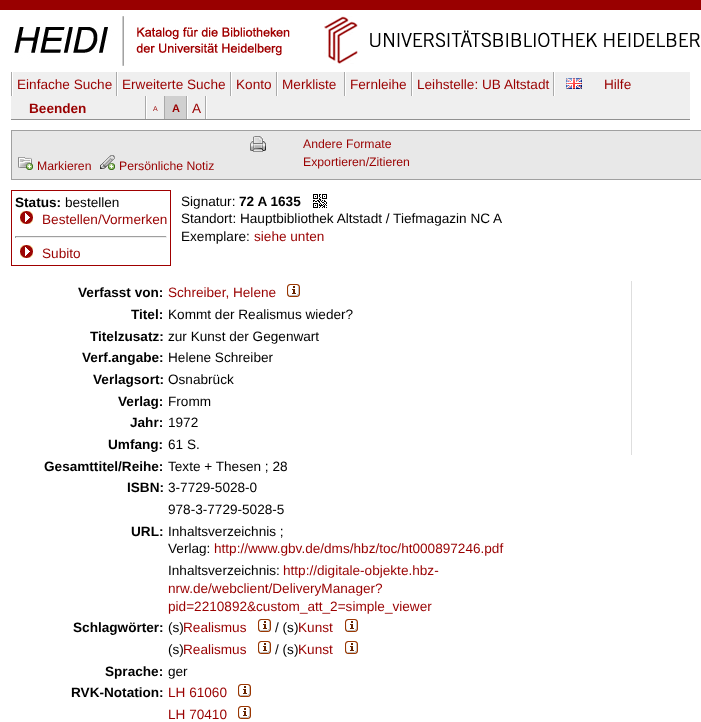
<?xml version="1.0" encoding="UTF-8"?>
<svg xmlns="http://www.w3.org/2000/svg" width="701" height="722">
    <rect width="100%" height="100%" fill="#FFFFFF"/>
    <rect x="0" y="0" width="701" height="10" fill="#990000"/>
    <image x="14" y="16" width="276" height="50" href="img_01.png"/>
    <image x="324" y="16" width="376" height="48" href="img_02.png"/>
    <rect x="11" y="72" width="679" height="47" fill="#EFEFEF"/>
    <rect x="11" y="119" width="679" height="1" fill="#909090"/>
    <rect x="554" y="72" width="1" height="24" fill="#FFFFFF"/>
    <rect x="11" y="72" width="1" height="24" fill="#AAAAAA"/>
    <rect x="116" y="72" width="1" height="24" fill="#AAAAAA"/>
    <rect x="12" y="72" width="1" height="24" fill="#FFFFFF"/>
    <text x="17" y="89" font-family="Liberation Sans" font-size="13.6" fill="#990000">Einfache Suche</text>
    <rect x="230" y="72" width="1" height="24" fill="#AAAAAA"/>
    <rect x="117" y="72" width="1" height="24" fill="#FFFFFF"/>
    <text x="122" y="89" font-family="Liberation Sans" font-size="13.6" fill="#990000">Erweiterte Suche</text>
    <rect x="276" y="72" width="1" height="24" fill="#AAAAAA"/>
    <rect x="231" y="72" width="1" height="24" fill="#FFFFFF"/>
    <text x="236" y="89" font-family="Liberation Sans" font-size="13.6" fill="#990000">Konto</text>
    <rect x="344" y="72" width="1" height="24" fill="#AAAAAA"/>
    <rect x="277" y="72" width="1" height="24" fill="#FFFFFF"/>
    <text x="282" y="89" font-family="Liberation Sans" font-size="13.6" fill="#990000">Merkliste</text>
    <rect x="411" y="72" width="1" height="24" fill="#AAAAAA"/>
    <rect x="345" y="72" width="1" height="24" fill="#FFFFFF"/>
    <text x="350" y="89" font-family="Liberation Sans" font-size="13.6" fill="#990000">Fernleihe</text>
    <rect x="553" y="72" width="1" height="24" fill="#AAAAAA"/>
    <rect x="412" y="72" width="1" height="24" fill="#FFFFFF"/>
    <text x="417" y="89" font-family="Liberation Sans" font-size="13.6" fill="#990000">Leihstelle: UB Altstadt</text>
    <image x="566" y="78" width="16" height="11" href="img_03.png"/>
    <text x="604" y="89" font-family="Liberation Sans" font-size="13.6" fill="#990000">Hilfe</text>
    <text x="29" y="113" font-family="Liberation Sans" font-size="13.6" font-weight="700" fill="#990000">Beenden</text>
    <rect x="206" y="96" width="1" height="23" fill="#FFFFFF"/>
    <rect x="145" y="96" width="1" height="23" fill="#AAAAAA"/>
    <rect x="164" y="96" width="1" height="23" fill="#AAAAAA"/>
    <rect x="146" y="96" width="1" height="23" fill="#FFFFFF"/>
    <text x="153" y="111" font-family="Liberation Sans" font-size="7" fill="#990000">A</text>
    <rect x="165" y="96" width="21" height="23" fill="#D0D0D0"/>
    <rect x="186" y="96" width="1" height="23" fill="#AAAAAA"/>
    <text x="172" y="112" font-family="Liberation Sans" font-size="11" font-weight="700" fill="#990000">A</text>
    <rect x="205" y="96" width="1" height="23" fill="#AAAAAA"/>
    <rect x="187" y="96" width="1" height="23" fill="#FFFFFF"/>
    <text x="192" y="113" font-family="Liberation Sans" font-size="13.6" fill="#990000">A</text>
    <rect x="11.5" y="130.5" width="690" height="49" fill="#E8E8E8" stroke="#A0A0A0"/>
    <image x="18" y="157" width="15" height="13" href="img_04.png"/>
    <text x="37" y="170" font-family="Liberation Sans" font-size="12.25" fill="#990000">Markieren</text>
    <image x="100" y="155" width="15" height="15" href="img_05.png"/>
    <text x="119" y="170" font-family="Liberation Sans" font-size="12.25" fill="#990000">Persönliche Notiz</text>
    <image x="250" y="136" width="16" height="16" href="img_06.png"/>
    <text font-family="Liberation Sans" font-size="12.25" fill="#990000">
        <tspan x="303" y="148">Andere Formate</tspan>
        <tspan x="303" y="166">Exportieren/Zitieren</tspan>
    </text>
    <rect x="11.5" y="190.5" width="159" height="75" fill="none" stroke="#A00000"/>
    <text x="15" y="207" font-family="Liberation Sans" font-size="13.6" font-weight="700" fill="#000000">Status:</text>
    <text x="65" y="207" font-family="Liberation Sans" font-size="13.6" fill="#000000">bestellen</text>
    <image x="20" y="211" width="13" height="13" href="img_07.png"/>
    <text x="42" y="224" font-family="Liberation Sans" font-size="13.6" fill="#990000">Bestellen/Vormerken</text>
    <rect x="15" y="236" width="152" height="1" fill="#9F9F9F"/>
    <rect x="166" y="236" width="1" height="2" fill="#EEEEEE"/>
    <rect x="15" y="237" width="152" height="1" fill="#EEEEEE"/>
    <rect x="15" y="236" width="1" height="2" fill="#9F9F9F"/>
    <image x="20" y="245" width="13" height="13" href="img_07.png"/>
    <text x="42" y="258" font-family="Liberation Sans" font-size="13.6" fill="#990000">Subito</text>
    <text x="181" y="206" font-family="Liberation Sans" font-size="13.6" fill="#000000">Signatur:</text>
    <text x="239" y="206" font-family="Liberation Sans" font-size="13.6" font-weight="700" fill="#000000">72 A 1635</text>
    <image x="313" y="194" width="14" height="14" href="img_08.png"/>
    <text font-family="Liberation Sans" font-size="13.6" fill="#000000">
        <tspan x="181" y="223">Standort: Hauptbibliothek Altstadt / Tiefmagazin NC A</tspan>
        <tspan x="181" y="241">Exemplare:</tspan>
    </text>
    <text x="254" y="241" font-family="Liberation Sans" font-size="13.6" fill="#990000">siehe unten</text>
    <text x="78" y="297" font-family="Liberation Sans" font-size="13.6" font-weight="700" fill="#000000">Verfasst von:</text>
    <text x="168" y="297" font-family="Liberation Sans" font-size="13.6" fill="#990000">Schreiber, Helene</text>
    <image x="287" y="284" width="13" height="13" href="img_09.png"/>
    <text x="131" y="319" font-family="Liberation Sans" font-size="13.6" font-weight="700" fill="#000000">Titel:</text>
    <text x="168" y="319" font-family="Liberation Sans" font-size="13.6" fill="#000000">Kommt der Realismus wieder?</text>
    <text x="90" y="341" font-family="Liberation Sans" font-size="13.6" font-weight="700" fill="#000000">Titelzusatz:</text>
    <text x="168" y="341" font-family="Liberation Sans" font-size="13.6" fill="#000000">zur Kunst der Gegenwart</text>
    <text x="82" y="362" font-family="Liberation Sans" font-size="13.6" font-weight="700" fill="#000000">Verf.angabe:</text>
    <text x="168" y="362" font-family="Liberation Sans" font-size="13.6" fill="#000000">Helene Schreiber</text>
    <text x="93" y="384" font-family="Liberation Sans" font-size="13.6" font-weight="700" fill="#000000">Verlagsort:</text>
    <text x="168" y="384" font-family="Liberation Sans" font-size="13.6" fill="#000000">Osnabrück</text>
    <text x="118" y="406" font-family="Liberation Sans" font-size="13.6" font-weight="700" fill="#000000">Verlag:</text>
    <text x="168" y="406" font-family="Liberation Sans" font-size="13.6" fill="#000000">Fromm</text>
    <text x="130" y="427" font-family="Liberation Sans" font-size="13.6" font-weight="700" fill="#000000">Jahr:</text>
    <text x="168" y="427" font-family="Liberation Sans" font-size="13.6" fill="#000000">1972</text>
    <text x="108" y="449" font-family="Liberation Sans" font-size="13.6" font-weight="700" fill="#000000">Umfang:</text>
    <text x="168" y="449" font-family="Liberation Sans" font-size="13.6" fill="#000000">61 S.</text>
    <text x="44" y="471" font-family="Liberation Sans" font-size="13.6" font-weight="700" fill="#000000">Gesamttitel/Reihe:</text>
    <text x="168" y="471" font-family="Liberation Sans" font-size="13.6" fill="#000000">Texte + Thesen ; 28</text>
    <text x="127" y="492" font-family="Liberation Sans" font-size="13.6" font-weight="700" fill="#000000">ISBN:</text>
    <text font-family="Liberation Sans" font-size="13.6" fill="#000000">
        <tspan x="168" y="492">3-7729-5028-0</tspan>
        <tspan x="168" y="514">978-3-7729-5028-5</tspan>
    </text>
    <text x="131" y="536" font-family="Liberation Sans" font-size="13.6" font-weight="700" fill="#000000">URL:</text>
    <text font-family="Liberation Sans" font-size="13.6" fill="#000000">
        <tspan x="168" y="536">Inhaltsverzeichnis ;</tspan>
        <tspan x="168" y="553">Verlag:</tspan>
    </text>
    <text x="214" y="553" font-family="Liberation Sans" font-size="13.6" fill="#990000">http://www.gbv.de/dms/hbz/toc/ht000897246.pdf</text>
    <text x="168" y="575" font-family="Liberation Sans" font-size="13.6" fill="#000000">Inhaltsverzeichnis:</text>
    <text x="283" y="575" font-family="Liberation Sans" font-size="13.6" fill="#990000">http://digitale-objekte.hbz-</text>
    <text font-family="Liberation Sans" font-size="13.6" fill="#990000">
        <tspan x="168" y="593">nrw.de/webclient/DeliveryManager?</tspan>
        <tspan x="168" y="611">pid=2210892&amp;custom_att_2=simple_viewer</tspan>
    </text>
    <text x="73" y="632" font-family="Liberation Sans" font-size="13.6" font-weight="700" fill="#000000">Schlagwörter:</text>
    <text x="168" y="632" font-family="Liberation Sans" font-size="13.6" fill="#000000">(s)</text>
    <text x="183" y="632" font-family="Liberation Sans" font-size="13.6" fill="#990000">Realismus</text>
    <image x="258" y="619" width="13" height="13" href="img_09.png"/>
    <text x="275" y="632" font-family="Liberation Sans" font-size="13.6" fill="#000000">/ (s)</text>
    <text x="298" y="632" font-family="Liberation Sans" font-size="13.6" fill="#990000">Kunst</text>
    <image x="345" y="619" width="13" height="13" href="img_09.png"/>
    <text x="168" y="654" font-family="Liberation Sans" font-size="13.6" fill="#000000">(s)</text>
    <text x="183" y="654" font-family="Liberation Sans" font-size="13.6" fill="#990000">Realismus</text>
    <image x="258" y="641" width="13" height="13" href="img_09.png"/>
    <text x="275" y="654" font-family="Liberation Sans" font-size="13.6" fill="#000000">/ (s)</text>
    <text x="298" y="654" font-family="Liberation Sans" font-size="13.6" fill="#990000">Kunst</text>
    <image x="345" y="641" width="13" height="13" href="img_09.png"/>
    <text x="105" y="676" font-family="Liberation Sans" font-size="13.6" font-weight="700" fill="#000000">Sprache:</text>
    <text x="168" y="676" font-family="Liberation Sans" font-size="13.6" fill="#000000">ger</text>
    <text x="71" y="697" font-family="Liberation Sans" font-size="13.6" font-weight="700" fill="#000000">RVK-Notation:</text>
    <text x="168" y="697" font-family="Liberation Sans" font-size="13.6" fill="#990000">LH 61060</text>
    <image x="238" y="684" width="13" height="13" href="img_09.png"/>
    <text x="168" y="719" font-family="Liberation Sans" font-size="13.6" fill="#990000">LH 70410</text>
    <image x="238" y="706" width="13" height="13" href="img_09.png"/>
    <rect x="631" y="281" width="1" height="174" fill="#DEDEDE"/>
</svg>
